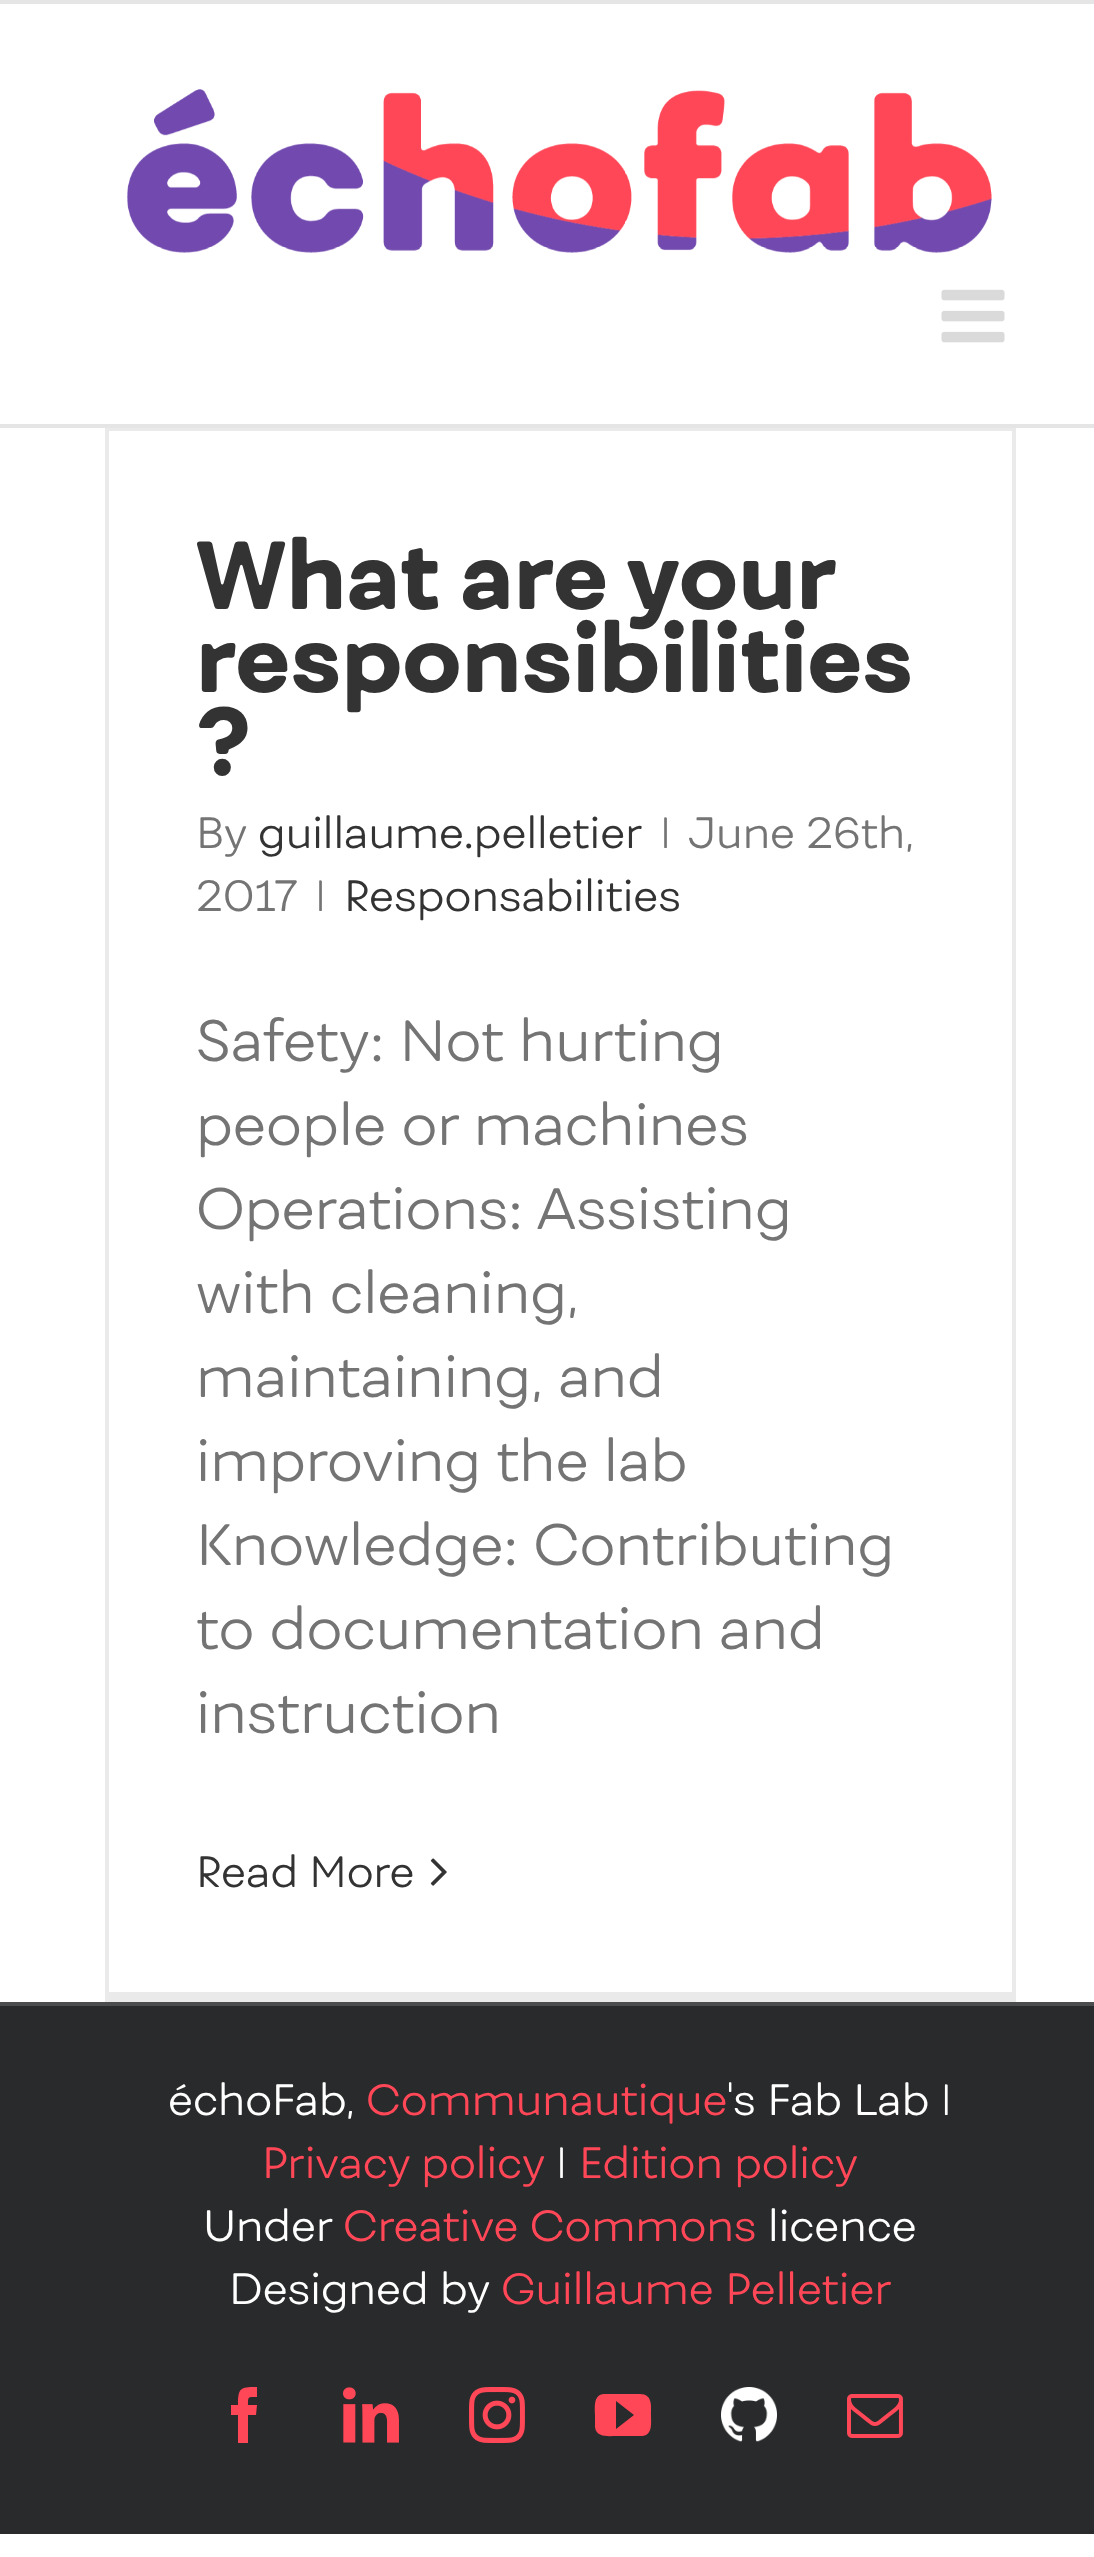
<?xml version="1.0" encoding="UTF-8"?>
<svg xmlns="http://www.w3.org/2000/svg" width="1094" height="2557">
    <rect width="100%" height="100%" fill="#FFFFFF"/>
    <rect x="0" y="0" width="1094" height="4" fill="#E5E5E5"/>
    <rect x="105" y="428" width="910" height="3" fill="#EBEAEA"/>
    <rect x="1012" y="427" width="4" height="1575" fill="#EBEAEA"/>
    <rect x="105" y="427" width="4" height="1575" fill="#EBEAEA"/>
    <rect x="0" y="424" width="1094" height="4" fill="#E5E5E5"/>
    <image x="127" y="89" width="865" height="164" href="img_01.png"/>
    <image x="941" y="289" width="64" height="54" href="img_02.png"/>
    <rect x="109" y="1992" width="903" height="10" fill="#EBEAEA"/>
    <text font-family="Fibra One" font-size="92.5" font-weight="800" fill="#333333">
        <tspan x="196" y="609" word-spacing="-1">What are your</tspan>
        <tspan x="196" y="692">responsibilities</tspan>
        <tspan x="196" y="775">?</tspan>
    </text>
    <text x="196" y="848" font-family="Fibra One" font-size="42" font-weight="300" fill="#747474">By</text>
    <text x="258" y="848" font-family="Fibra One" font-size="42" font-weight="300" fill="#333333">guillaume.pelletier</text>
    <text x="660" y="848" font-family="Fibra One" font-size="42" font-weight="300" fill="#747474">|</text>
    <text x="688" y="848" font-family="Fibra One" font-size="42" font-weight="300" fill="#747474">June 26th,</text>
    <text x="196" y="911" font-family="Fibra One" font-size="42" font-weight="300" fill="#747474">2017</text>
    <text x="315" y="911" font-family="Fibra One" font-size="42" font-weight="300" fill="#747474">|</text>
    <text x="344" y="911" font-family="Fibra One" font-size="42" font-weight="300" fill="#333333">Responsabilities</text>
    <text font-family="Fibra One" font-size="56" font-weight="300" fill="#747474">
        <tspan x="196" y="1061">Safety: Not hurting</tspan>
        <tspan x="196" y="1145">people or machines</tspan>
        <tspan x="196" y="1229">Operations: Assisting</tspan>
        <tspan x="196" y="1313">with cleaning,</tspan>
        <tspan x="196" y="1397">maintaining, and</tspan>
        <tspan x="196" y="1481">improving the lab</tspan>
        <tspan x="196" y="1565">Knowledge: Contributing</tspan>
        <tspan x="196" y="1649">to documentation and</tspan>
        <tspan x="196" y="1733">instruction</tspan>
    </text>
    <text x="196" y="1887" font-family="Fibra One" font-size="42" font-weight="300" fill="#333333">Read More</text>
    <image x="430" y="1858" width="17" height="28" href="img_03.png"/>
    <rect x="0" y="2006" width="1094" height="528" fill="#282A2B"/>
    <rect x="0" y="2002" width="1094" height="4" fill="#4B4C4D"/>
    <text x="168" y="2115" font-family="Fibra One" font-size="42" font-weight="300" fill="#FFFFFF">échoFab,</text>
    <text x="366" y="2115" font-family="Fibra One" font-size="42" font-weight="300" fill="#FF4757">Communautique</text>
    <text x="726" y="2115" font-family="Fibra One" font-size="42" font-weight="300" fill="#FFFFFF">'s Fab Lab |</text>
    <text x="262" y="2178" font-family="Fibra One" font-size="42" font-weight="300" fill="#FF4757">Privacy policy</text>
    <text x="556" y="2178" font-family="Fibra One" font-size="42" font-weight="300" fill="#FFFFFF">|</text>
    <text x="579" y="2178" font-family="Fibra One" font-size="42" font-weight="300" fill="#FF4757">Edition policy</text>
    <text x="203" y="2241" font-family="Fibra One" font-size="42" font-weight="300" fill="#FFFFFF">Under</text>
    <text x="343" y="2241" font-family="Fibra One" font-size="42" font-weight="300" fill="#FF4757">Creative Commons</text>
    <text x="768" y="2241" font-family="Fibra One" font-size="42" font-weight="300" fill="#FFFFFF">licence</text>
    <text x="229" y="2304" font-family="Fibra One" font-size="42" font-weight="300" fill="#FFFFFF">Designed by</text>
    <text x="501" y="2304" font-family="Fibra One" font-size="42" font-weight="300" fill="#FF4757">Guillaume Pelletier</text>
    <path d="M 248 2443 H 238 V 2415 H 231 V 2405 H 238 C 238 2388 240 2387 257 2387 V 2397 C 248 2397 248 2396 248 2405 H 257 L 256 2415 H 248 Z" fill="#FF4757"/>
    <image x="343" y="2387" width="56" height="56" href="img_04.png"/>
    <image x="469" y="2387" width="56" height="56" href="img_05.png"/>
    <path d="M 640 2394 H 604 C 593 2395 595 2407 595 2415 V 2427 C 596 2438 609 2436 617 2436 H 642 C 653 2435 651 2423 651 2415 C 651 2407 653 2394 640 2394 Z M 616 2429 V 2401 L 634 2415 Z" fill="#FF4757"/>
    <image x="721" y="2387" width="56" height="55" href="img_06.png"/>
    <image x="847" y="2394" width="56" height="44" href="img_07.png"/>
</svg>
